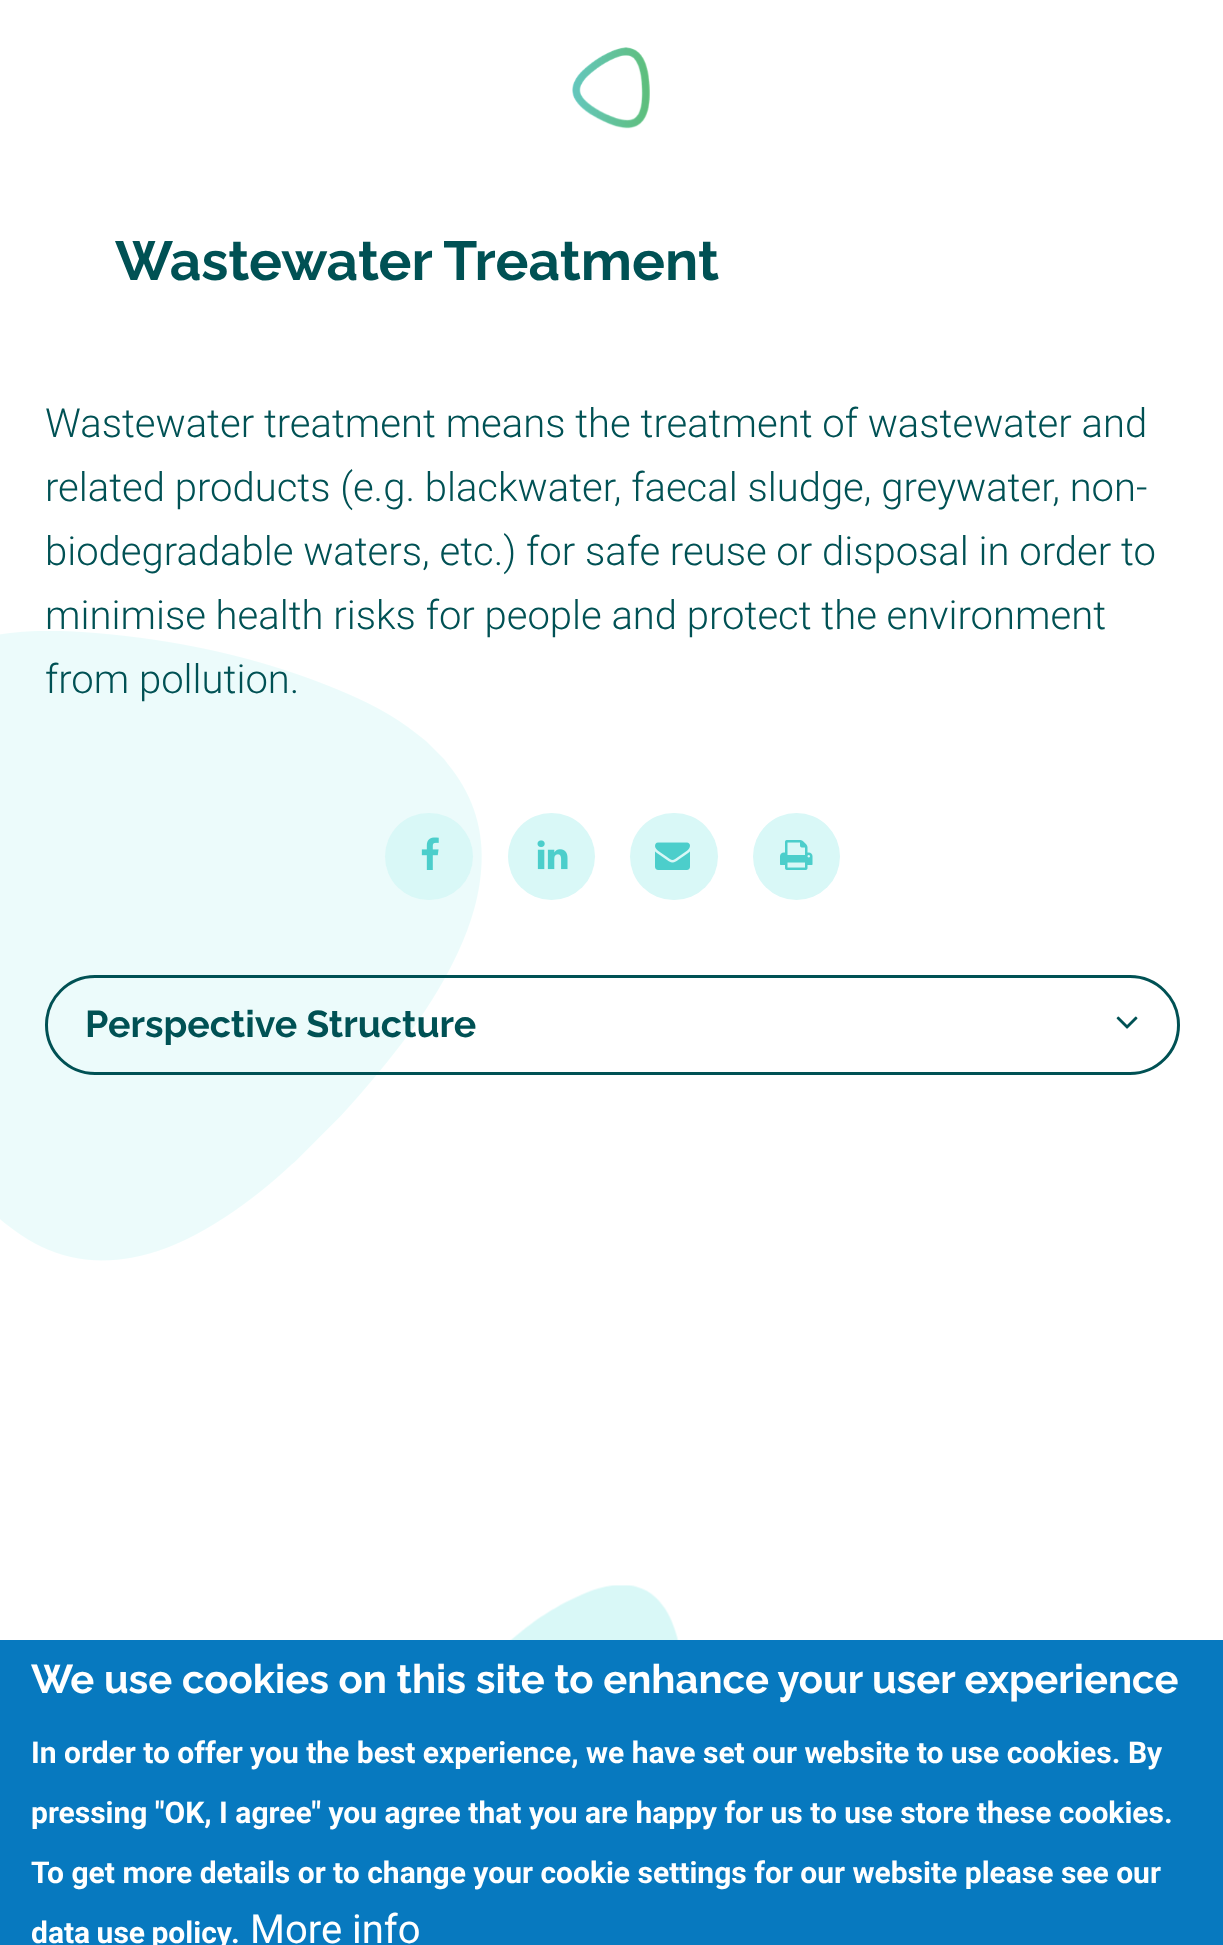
<?xml version="1.0" encoding="UTF-8"?>
<svg xmlns="http://www.w3.org/2000/svg" width="1223" height="1945">
    <rect width="100%" height="100%" fill="#FFFFFF"/>
    <image x="572" y="47" width="78" height="82" href="img_01.png"/>
    <text x="115" y="280" font-family="Raleway" font-size="55" font-weight="700" fill="#005154">Wastewater Treatment</text>
    <text font-family="Roboto" font-size="40" font-weight="300" fill="#005154">
        <tspan x="45" y="437">Wastewater treatment means the treatment of wastewater and</tspan>
        <tspan x="45" y="501">related products (e.g. blackwater, faecal sludge, greywater, non-</tspan>
        <tspan x="45" y="565">biodegradable waters, etc.) for safe reuse or disposal in order to</tspan>
    </text>
    <image x="0" y="631" width="482" height="630" href="img_02.png"/>
    <text font-family="Roboto" font-size="40" font-weight="300" fill="#005154">
        <tspan x="45" y="629">minimise health risks for people and protect the environment</tspan>
        <tspan x="45" y="693">from pollution.</tspan>
    </text>
    <rect x="385" y="813" width="88" height="87" rx="43.5" fill="#D9F8F7"/>
    <image x="421" y="837" width="18" height="33" href="img_03.png"/>
    <circle cx="551.5" cy="856.5" r="43.5" fill="#D9F8F7"/>
    <image x="537" y="840" width="31" height="30" href="img_04.png"/>
    <rect x="630" y="813" width="88" height="87" rx="43.5" fill="#D9F8F7"/>
    <image x="655" y="842" width="35" height="28" href="img_05.png"/>
    <circle cx="796.5" cy="856.5" r="43.5" fill="#D9F8F7"/>
    <image x="780" y="840" width="33" height="30" href="img_06.png"/>
    <rect x="46.5" y="976.5" width="1132" height="97" rx="48.5" fill="none" stroke="#005154" stroke-width="3"/>
    <text x="85" y="1037" font-family="Raleway" font-size="37.5" font-weight="700" fill="#005154">Perspective Structure</text>
    <image x="1116" y="1016" width="22" height="13" href="img_07.png"/>
    <image x="510" y="1585" width="169" height="55" href="img_08.png"/>
    <rect x="0" y="1640" width="1223" height="305" fill="#0779BF"/>
    <text x="31" y="1693" font-family="Raleway" font-size="40" font-weight="700" fill="#FFFFFF">We use cookies on this site to enhance your user experience</text>
    <text x="31" y="1763" font-family="Roboto" font-size="30" font-weight="700" fill="#FFFFFF">In order to offer you the best experience, we have set our website to use cookies. By</text>
    <text x="31" y="1823" font-family="Roboto" font-size="30" font-weight="700" fill="#FFFFFF">pressing "OK, I agree" you agree that you are happy for us to use store these cookies.</text>
    <text x="31" y="1883" font-family="Roboto" font-size="30" font-weight="700" fill="#FFFFFF">To get more details or to change your cookie settings for our website please see our</text>
    <text x="31" y="1943" word-spacing="-1" font-family="Roboto" font-size="30" font-weight="700" fill="#FFFFFF">data use policy</text>
    <text x="231" y="1943" font-family="Roboto" font-size="30" font-weight="700" fill="#FFFFFF">.</text>
    <text x="250" y="1943" font-family="Roboto" font-size="40" fill="#FFFFFF">More info</text>
</svg>
